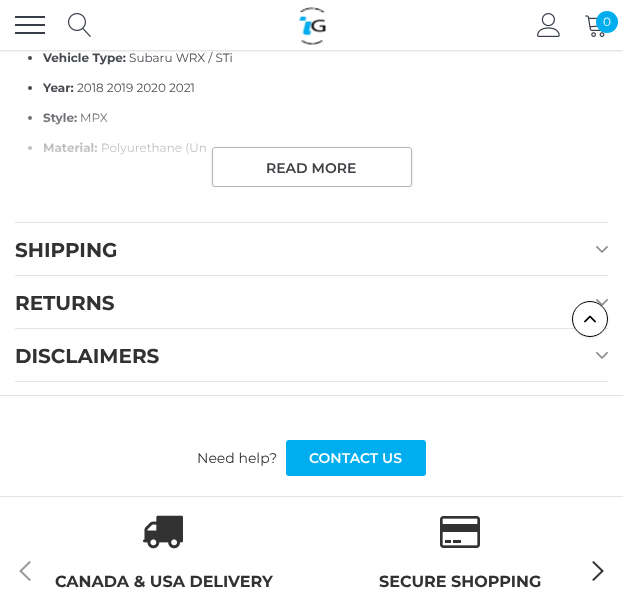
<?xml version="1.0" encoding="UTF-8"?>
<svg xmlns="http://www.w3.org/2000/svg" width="623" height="613">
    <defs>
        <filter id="blur1" x="-50%" y="-200%" width="200%" height="500%"><feGaussianBlur stdDeviation="1"/></filter>
        <linearGradient id="g1" gradientUnits="userSpaceOnUse" x1="312" y1="107" x2="312" y2="187"><stop offset="0" stop-color="#FFFFFF" stop-opacity="0"/><stop offset="0.3" stop-color="#FFFFFF" stop-opacity="0.5"/><stop offset="1" stop-color="#FFFFFF"/></linearGradient>
        <clipPath id="clip1"><rect x="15" y="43" width="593" height="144"/></clipPath>
        <filter id="blur2" x="-50%" y="-200%" width="200%" height="500%"><feGaussianBlur stdDeviation="1.5"/></filter>
    </defs>
    <rect width="100%" height="100%" fill="#FFFFFF"/>
    <rect x="0" y="1" width="623" height="50" fill="#000000" fill-opacity="0.15" filter="url(#blur1)"/>
    <rect x="0" y="0" width="623" height="50" fill="#FFFFFF"/>
    <rect x="15" y="24" width="30" height="2" fill="#383E47"/>
    <rect x="15" y="16" width="30" height="2" fill="#383E47"/>
    <rect x="15" y="32" width="30" height="2" fill="#383E47"/>
    <image x="68" y="13" width="23" height="24" href="img_01.png"/>
    <image x="298" y="7" width="28" height="38" href="img_02.png"/>
    <image x="537" y="13" width="23" height="24" href="img_03.png"/>
    <image x="585" y="15" width="20" height="22" href="img_04.png"/>
    <circle cx="607" cy="22" r="11" fill="#00AEEF"/>
    <text x="603" y="26" font-family="Montserrat" font-size="12" fill="#FFFFFF">0</text>
    <rect x="15" y="381" width="593" height="1" fill="#E2E4E8"/>
    <circle cx="30" cy="58" r="2" fill="#484B51"/>
    <text x="43" y="62" font-family="Montserrat" font-size="12" font-weight="700" fill="#484B51">Vehicle Type:</text>
    <text x="129" y="62" font-family="Montserrat" font-size="12" fill="#484B51">Subaru WRX / STi</text>
    <circle cx="30" cy="88" r="2" fill="#484B51"/>
    <text x="43" y="92" font-family="Montserrat" font-size="12" font-weight="700" fill="#484B51">Year:</text>
    <text x="77" y="92" font-family="Montserrat" font-size="12" fill="#484B51">2018 2019 2020 2021</text>
    <circle cx="30" cy="118" r="2" fill="#484B51"/>
    <text x="43" y="122" font-family="Montserrat" font-size="12" font-weight="700" fill="#484B51">Style:</text>
    <text x="80" y="122" font-family="Montserrat" font-size="12" fill="#484B51">MPX</text>
    <circle cx="30" cy="148" r="2" fill="#484B51"/>
    <text x="43" y="152" font-family="Montserrat" font-size="12" font-weight="700" fill="#484B51">Material:</text>
    <text x="101" y="152" font-family="Montserrat" font-size="12" fill="#484B51">Polyurethane (Un</text>
    <rect x="28" y="113" width="178" height="42" fill="url(#g1)"/>
    <g clip-path="url(#clip1)">
        <rect x="212" y="148" width="200" height="40" rx="3" fill="#000000" fill-opacity="0.1" filter="url(#blur2)"/>
    </g>
    <rect x="212.5" y="147.5" width="199" height="39" rx="2.5" fill="#FFFFFF" stroke="#B6B6B6"/>
    <text x="266" y="173" font-family="Montserrat" font-size="14" font-weight="600" fill="#3D4044">READ MORE</text>
    <rect x="15" y="222" width="593" height="1" fill="#E2E4E8"/>
    <text x="15" y="257" font-family="Montserrat" font-size="20" font-weight="700" fill="#323232">SHIPPING</text>
    <image x="596" y="246" width="12" height="7" href="img_05.png"/>
    <rect x="15" y="275" width="593" height="1" fill="#E2E4E8"/>
    <text x="15" y="310" font-family="Montserrat" font-size="20" font-weight="700" fill="#323232">RETURNS</text>
    <image x="596" y="299" width="12" height="7" href="img_05.png"/>
    <rect x="15" y="328" width="593" height="1" fill="#E2E4E8"/>
    <text x="15" y="363" font-family="Montserrat" font-size="20" font-weight="700" fill="#323232">DISCLAIMERS</text>
    <image x="596" y="352" width="12" height="7" href="img_05.png"/>
    <rect x="572" y="302" width="36" height="36" rx="18" fill="#000000" fill-opacity="0.1" filter="url(#blur2)"/>
    <circle cx="590" cy="319" r="17.5" fill="#FFFFFF" stroke="#000000"/>
    <image x="584" y="315" width="12" height="8" href="img_06.png"/>
    <rect x="0" y="395" width="623" height="1" fill="#E2E4E8"/>
    <text x="197" y="463" font-family="Montserrat" font-size="14" fill="#323232">Need help?</text>
    <rect x="286" y="440" width="140" height="36" rx="3" fill="#00AEEF"/>
    <text x="309" y="463" font-family="Montserrat" font-size="14" font-weight="600" fill="#FFFFFF">CONTACT US</text>
    <rect x="0" y="496" width="623" height="1" fill="#E2E4E8"/>
    <image x="19" y="561" width="12" height="20" href="img_07.png"/>
    <image x="143" y="515" width="40" height="34" href="img_08.png"/>
    <text x="55" y="587" font-family="Montserrat" font-size="16" font-weight="700" fill="#323232">CANADA &amp; USA DELIVERY</text>
    <image x="440" y="516" width="40" height="32" href="img_09.png"/>
    <text x="379" y="587" font-family="Montserrat" font-size="16" font-weight="700" fill="#323232">SECURE SHOPPING</text>
    <image x="592" y="561" width="12" height="20" href="img_10.png"/>
</svg>
